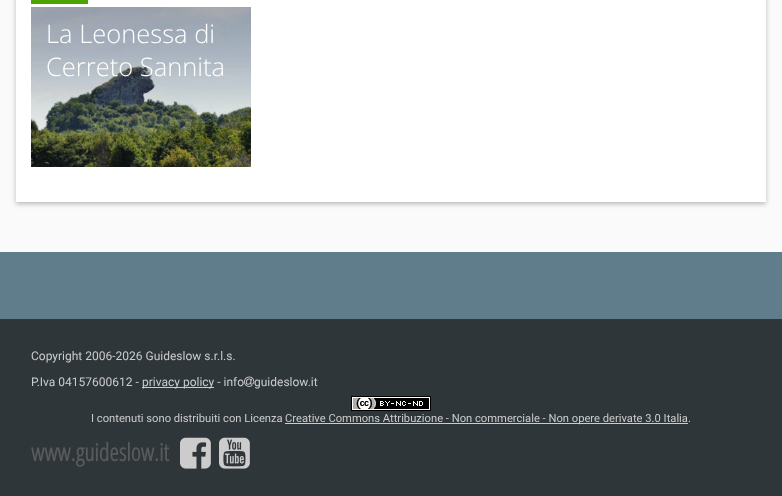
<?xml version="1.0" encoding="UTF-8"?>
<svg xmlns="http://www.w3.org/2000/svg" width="782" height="496">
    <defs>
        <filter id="blur1" x="-50%" y="-200%" width="200%" height="500%"><feGaussianBlur stdDeviation="2.5"/></filter>
    </defs>
    <rect width="100%" height="100%" fill="#FAFAFA"/>
    <rect x="16" y="-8" width="750" height="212" fill="#000000" fill-opacity="0.26" filter="url(#blur1)"/>
    <rect x="16" y="0" width="750" height="202" fill="#FFFFFF"/>
    <rect x="31" y="0" width="57" height="4" fill="#4AA500"/>
    <image x="31" y="7" width="220" height="160" href="img_01.png"/>
    <text font-family="Open Sans" font-size="25.5" font-weight="300" fill="#FFFFFF">
        <tspan x="46" y="43">La Leonessa di</tspan>
        <tspan x="46" y="76">Cerreto Sannita</tspan>
    </text>
    <rect x="0" y="252" width="782" height="67" fill="#607D8B"/>
    <rect x="0" y="319" width="782" height="177" fill="#2E3639"/>
    <text x="31" y="360" font-family="Roboto" font-size="12" fill="#CCCCCC">Copyright 2006-2026 Guideslow s.r.l.s.</text>
    <text x="31" y="386" font-family="Roboto" font-size="12" fill="#CCCCCC">P.Iva 04157600612 -</text>
    <rect x="142" y="387" width="72" height="1" fill="#CCCCCC"/>
    <text x="142" y="386" font-family="Roboto" font-size="12" fill="#CCCCCC">privacy policy - info</text>
    <image x="244" y="376" width="11" height="11" href="img_02.png"/>
    <text x="254" y="386" font-family="Roboto" font-size="12" fill="#CCCCCC">guideslow.it</text>
    <image x="351" y="396" width="80" height="15" href="img_03.png"/>
    <text x="91" y="422" font-family="Roboto" font-size="11.2" fill="#CCCCCC">I contenuti sono distribuiti con Licenza</text>
    <rect x="285" y="423" width="403" height="1" fill="#CCCCCC"/>
    <text x="285" y="422" font-family="Roboto" font-size="11.2" fill="#CCCCCC">Creative Commons Attribuzione - Non commerciale - Non opere derivate 3.0 Italia.</text>
    <text x="31" y="461" font-family="Open Sans Condensed" font-size="24" font-weight="700" fill="#5A5A5C">www.guideslow.it</text>
    <image x="180" y="437" width="31" height="32" href="img_04.png"/>
    <image x="219" y="437" width="31" height="32" href="img_05.png"/>
</svg>
